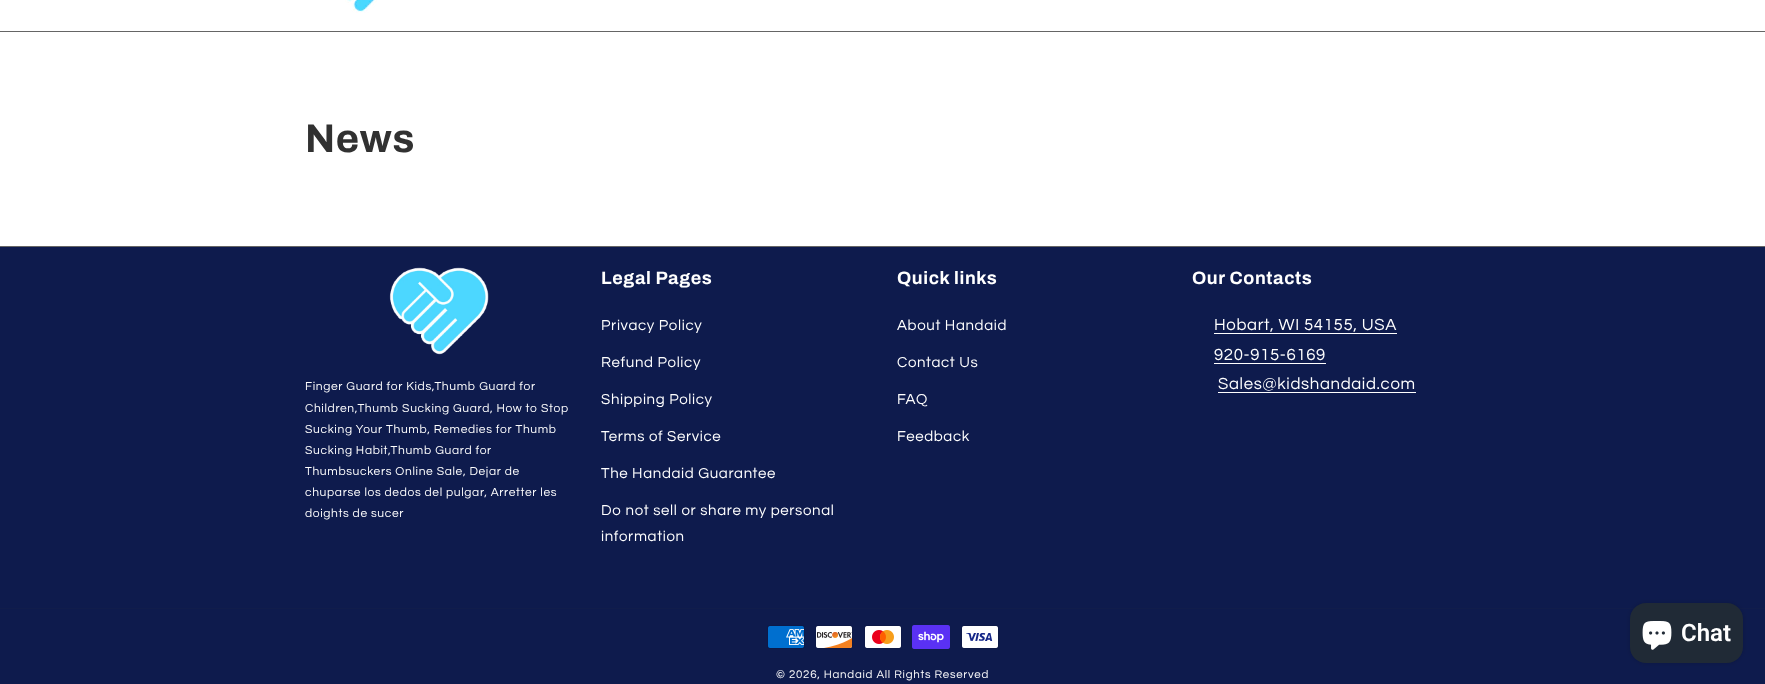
<?xml version="1.0" encoding="UTF-8"?>
<svg xmlns="http://www.w3.org/2000/svg" width="1765" height="684">
    <defs>
        <filter id="blur1" x="-50%" y="-200%" width="200%" height="500%"><feGaussianBlur stdDeviation="2.5"/></filter>
    </defs>
    <rect width="100%" height="100%" fill="#FFFFFF"/>
    <image x="345" y="0" width="32" height="13" href="img_01.png"/>
    <rect x="0" y="31" width="1765" height="1" fill="#656565"/>
    <rect x="0" y="246" width="1765" height="1" fill="#656565"/>
    <text x="305" y="152" font-family="Archivo" font-size="40" font-weight="700" letter-spacing="0.6" fill="#313131">News</text>
    <rect x="0" y="247" width="1765" height="437" fill="#0E1B4D"/>
    <text x="601" y="284" font-family="Archivo" font-size="18" font-weight="700" letter-spacing="0.6" fill="#FFFFFF">Legal Pages</text>
    <text x="601" y="330" font-family="Questrial" font-size="15" letter-spacing="0.65" fill="#FFFFFF">Privacy Policy</text>
    <text x="601" y="367" font-family="Questrial" font-size="15" letter-spacing="0.65" fill="#FFFFFF">Refund Policy</text>
    <text x="601" y="404" font-family="Questrial" font-size="15" letter-spacing="0.65" fill="#FFFFFF">Shipping Policy</text>
    <text x="601" y="441" font-family="Questrial" font-size="15" letter-spacing="0.65" fill="#FFFFFF">Terms of Service</text>
    <text x="601" y="478" font-family="Questrial" font-size="15" letter-spacing="0.65" fill="#FFFFFF">The Handaid Guarantee</text>
    <text font-family="Questrial" font-size="15" letter-spacing="0.65" fill="#FFFFFF">
        <tspan x="601" y="515">Do not sell or share my personal</tspan>
        <tspan x="601" y="541">information</tspan>
    </text>
    <text x="897" y="284" font-family="Archivo" font-size="18" font-weight="700" letter-spacing="0.6" fill="#FFFFFF">Quick links</text>
    <text x="897" y="330" font-family="Questrial" font-size="15" letter-spacing="0.65" fill="#FFFFFF">About Handaid</text>
    <text x="897" y="367" font-family="Questrial" font-size="15" letter-spacing="0.65" fill="#FFFFFF">Contact Us</text>
    <text x="897" y="404" font-family="Questrial" font-size="15" letter-spacing="0.65" fill="#FFFFFF">FAQ</text>
    <text x="897" y="441" font-family="Questrial" font-size="15" letter-spacing="0.65" fill="#FFFFFF">Feedback</text>
    <text x="1192" y="284" font-family="Archivo" font-size="18" font-weight="700" letter-spacing="0.6" fill="#FFFFFF">Our Contacts</text>
    <text x="1214" y="330" font-family="Questrial" font-size="16.75" letter-spacing="0.65" fill="#FFFFFF">Hobart, WI 54155, USA</text>
    <rect x="1214" y="333" width="183" height="1" fill="#FFFFFF"/>
    <text x="1214" y="360" font-family="Questrial" font-size="16.75" letter-spacing="0.65" fill="#FFFFFF">920-915-6169</text>
    <rect x="1214" y="363" width="112" height="1" fill="#FFFFFF"/>
    <text x="1218" y="389" font-family="Questrial" font-size="16.75" letter-spacing="0.65" fill="#FFFFFF">Sales@kidshandaid.com</text>
    <rect x="1218" y="392" width="198" height="1" fill="#FFFFFF"/>
    <image x="389" y="267" width="100" height="88" href="img_02.png"/>
    <text font-family="Questrial" font-size="12" letter-spacing="0.65" fill="#FFFFFF">
        <tspan x="305" y="390">Finger Guard for Kids,Thumb Guard for</tspan>
        <tspan x="305" y="412">Children,Thumb Sucking Guard, How to Stop</tspan>
        <tspan x="305" y="433">Sucking Your Thumb, Remedies for Thumb</tspan>
        <tspan x="305" y="454">Sucking Habit,Thumb Guard for</tspan>
        <tspan x="305" y="475">Thumbsuckers Online Sale, Dejar de</tspan>
        <tspan x="305" y="496">chuparse los dedos del pulgar, Arretter les</tspan>
        <tspan x="305" y="517">doights de sucer</tspan>
    </text>
    <rect x="0" y="608" width="1765" height="1" fill="#111D4B"/>
    <image x="767" y="625" width="38" height="24" href="img_03.png"/>
    <image x="815" y="625" width="38" height="24" href="img_04.png"/>
    <image x="864" y="625" width="38" height="24" href="img_05.png"/>
    <image x="912" y="625" width="38" height="24" href="img_06.png"/>
    <image x="961" y="625" width="38" height="24" href="img_07.png"/>
    <text x="776" y="678" font-family="Questrial" font-size="11.5" letter-spacing="0.75" fill="#FFFFFF">© 2026, Handaid All Rights Reserved</text>
    <rect x="1630" y="603" width="113" height="60" rx="16" fill="#000000" fill-opacity="0.15" filter="url(#blur1)"/>
    <rect x="1630" y="603" width="113" height="60" rx="16" fill="#202A36"/>
    <image x="1642" y="621" width="30" height="29" href="img_08.png"/>
    <text x="1681" y="641" font-family="Roboto" font-size="24" font-weight="600" fill="#FFFFFF">Chat</text>
</svg>
